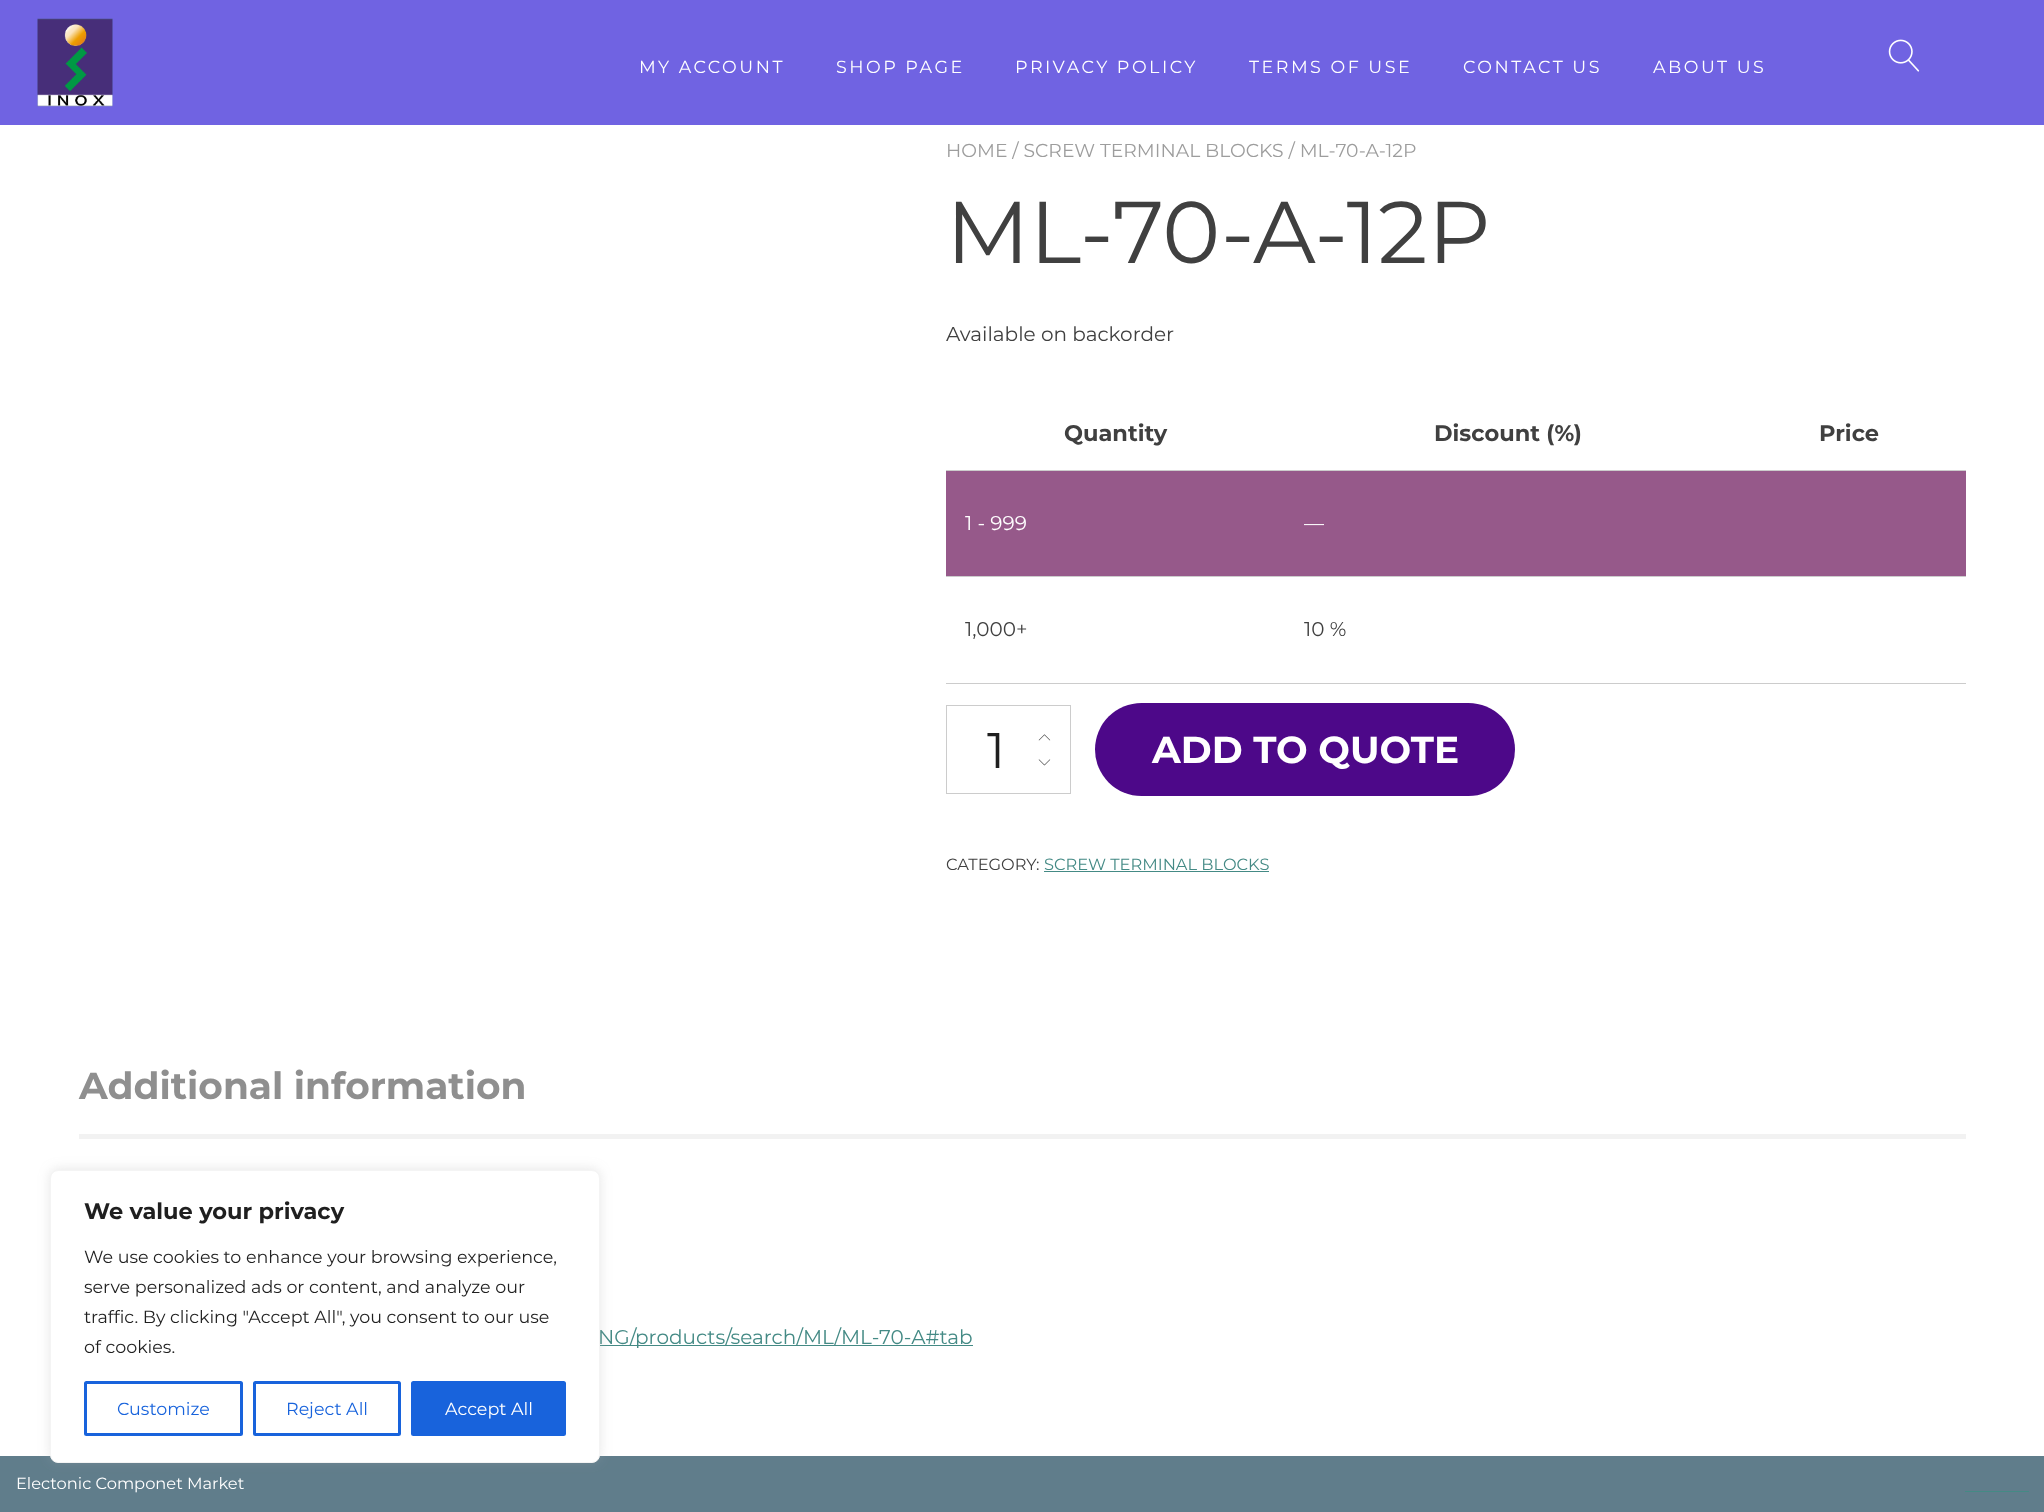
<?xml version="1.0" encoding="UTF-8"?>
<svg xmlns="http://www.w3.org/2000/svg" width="2044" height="1512">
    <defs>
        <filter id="blur1" x="-50%" y="-200%" width="200%" height="500%"><feGaussianBlur stdDeviation="6"/></filter>
    </defs>
    <rect width="100%" height="100%" fill="#FFFFFF"/>
    <rect x="0" y="0" width="2044" height="125" fill="#7063E2"/>
    <image x="37" y="18" width="76" height="89" href="img_01.png"/>
    <text x="639" y="73" font-family="Montserrat" font-size="17.5" letter-spacing="2.5" fill="#FFFFFF">MY ACCOUNT</text>
    <text x="836" y="73" font-family="Montserrat" font-size="17.5" letter-spacing="2.5" fill="#FFFFFF">SHOP PAGE</text>
    <text x="1015" y="73" font-family="Montserrat" font-size="17.5" letter-spacing="2.5" fill="#FFFFFF">PRIVACY POLICY</text>
    <text x="1249" y="73" font-family="Montserrat" font-size="17.5" letter-spacing="2.5" fill="#FFFFFF">TERMS OF USE</text>
    <text x="1463" y="73" font-family="Montserrat" font-size="17.5" letter-spacing="2.5" fill="#FFFFFF">CONTACT US</text>
    <text x="1653" y="73" font-family="Montserrat" font-size="17.5" letter-spacing="2.5" fill="#FFFFFF">ABOUT US</text>
    <image x="1888" y="39" width="32" height="33" href="img_02.png"/>
    <text x="946" y="157" font-family="Montserrat" font-size="18.75" fill="#9D9D9D">HOME / SCREW TERMINAL BLOCKS / ML-70-A-12P</text>
    <text x="946" y="263" font-family="Montserrat" font-size="87.5" fill="#404040">ML-70-A-12P</text>
    <text x="946" y="341" font-family="Montserrat" font-size="20" fill="#404040">Available on backorder</text>
    <text x="1064" y="441" font-family="Montserrat" font-size="22.5" font-weight="700" fill="#404040">Quantity</text>
    <text x="1434" y="441" font-family="Montserrat" font-size="22.5" font-weight="700" fill="#404040">Discount (%)</text>
    <text x="1819" y="441" font-family="Montserrat" font-size="22.5" font-weight="700" fill="#404040">Price</text>
    <rect x="946" y="471" width="1020" height="105" fill="#96598A"/>
    <rect x="946" y="470" width="1020" height="1" fill="#CCCCCC"/>
    <rect x="946" y="576" width="1020" height="1" fill="#CCCCCC"/>
    <text x="965" y="530" font-family="Montserrat" font-size="20" fill="#FFFFFF">1 - 999</text>
    <text x="1304" y="530" font-family="Montserrat" font-size="20" fill="#FFFFFF">—</text>
    <rect x="946" y="683" width="1020" height="1" fill="#CCCCCC"/>
    <text x="965" y="636" font-family="Montserrat" font-size="20" fill="#404040">1,000+</text>
    <text x="1304" y="636" font-family="Montserrat" font-size="20" fill="#404040">10 %</text>
    <rect x="946.5" y="705.5" width="124" height="88" fill="none" stroke="#CCCCCC"/>
    <text x="987" y="768" font-family="Montserrat" font-size="50" fill="#1F1F1F">1</text>
    <image x="1038" y="734" width="13" height="7" href="img_03.png"/>
    <image x="1038" y="759" width="13" height="7" href="img_04.png"/>
    <rect x="1095" y="703" width="420" height="93" rx="46.5" fill="#4D0889"/>
    <text x="1152" y="763" font-family="Montserrat" font-size="37.5" font-weight="700" fill="#FFFFFF">ADD TO QUOTE</text>
    <text x="946" y="870" font-family="Montserrat" font-size="16.25" fill="#404040">CATEGORY:</text>
    <text x="1044" y="870" font-family="Montserrat" font-size="16.25" fill="#448A85">SCREW TERMINAL BLOCKS</text>
    <rect x="1044" y="871" width="225" height="1" fill="#448A85"/>
    <rect x="79" y="1134" width="1887" height="5" fill="#F2F2F2"/>
    <text x="79" y="1099" font-family="Montserrat" font-size="37.5" font-weight="700" fill="#8F8F8F">Additional information</text>
    <rect x="600" y="1345" width="373" height="1" fill="#448A85"/>
    <text x="598" y="1344" font-family="Montserrat" font-size="20" fill="#448A85">NG/products/search/ML/ML-70-A#tab</text>
    <rect x="0" y="1456" width="2044" height="56" fill="#607D8B"/>
    <rect x="50" y="1169" width="550" height="292" rx="8" fill="#ACABAB" fill-opacity="0.3" filter="url(#blur1)"/>
    <rect x="50.5" y="1170.5" width="549" height="292" rx="7.5" fill="#FFFFFF" stroke="#F4F4F4"/>
    <text x="84" y="1219" font-family="Montserrat" font-size="22.5" font-weight="700" fill="#1F1F1F">We value your privacy</text>
    <text font-family="Montserrat" font-size="17.5" fill="#1F1F1F">
        <tspan x="84" y="1263">We use cookies to enhance your browsing experience,</tspan>
        <tspan x="84" y="1293">serve personalized ads or content, and analyze our</tspan>
        <tspan x="84" y="1323">traffic. By clicking "Accept All", you consent to our use</tspan>
        <tspan x="84" y="1353">of cookies.</tspan>
    </text>
    <rect x="85.5" y="1382.5" width="156" height="52" rx="1" fill="none" stroke="#1863DC" stroke-width="3"/>
    <text x="117" y="1415" font-family="Montserrat" font-size="17.5" fill="#1863DC">Customize</text>
    <rect x="254.5" y="1382.5" width="145" height="52" rx="1" fill="none" stroke="#1863DC" stroke-width="3"/>
    <text x="286" y="1415" font-family="Montserrat" font-size="17.5" fill="#1863DC">Reject All</text>
    <rect x="412.5" y="1382.5" width="152" height="52" rx="1" fill="#1863DC" stroke="#1863DC" stroke-width="3"/>
    <text x="445" y="1415" font-family="Montserrat" font-size="17.5" fill="#FFFFFF">Accept All</text>
    <text x="16" y="1489" font-family="Montserrat" font-size="16.25" fill="#FFFFFF">Electonic Componet Market</text>
    <rect x="1965" y="1491" width="64" height="1" fill="#448A85"/>
</svg>
